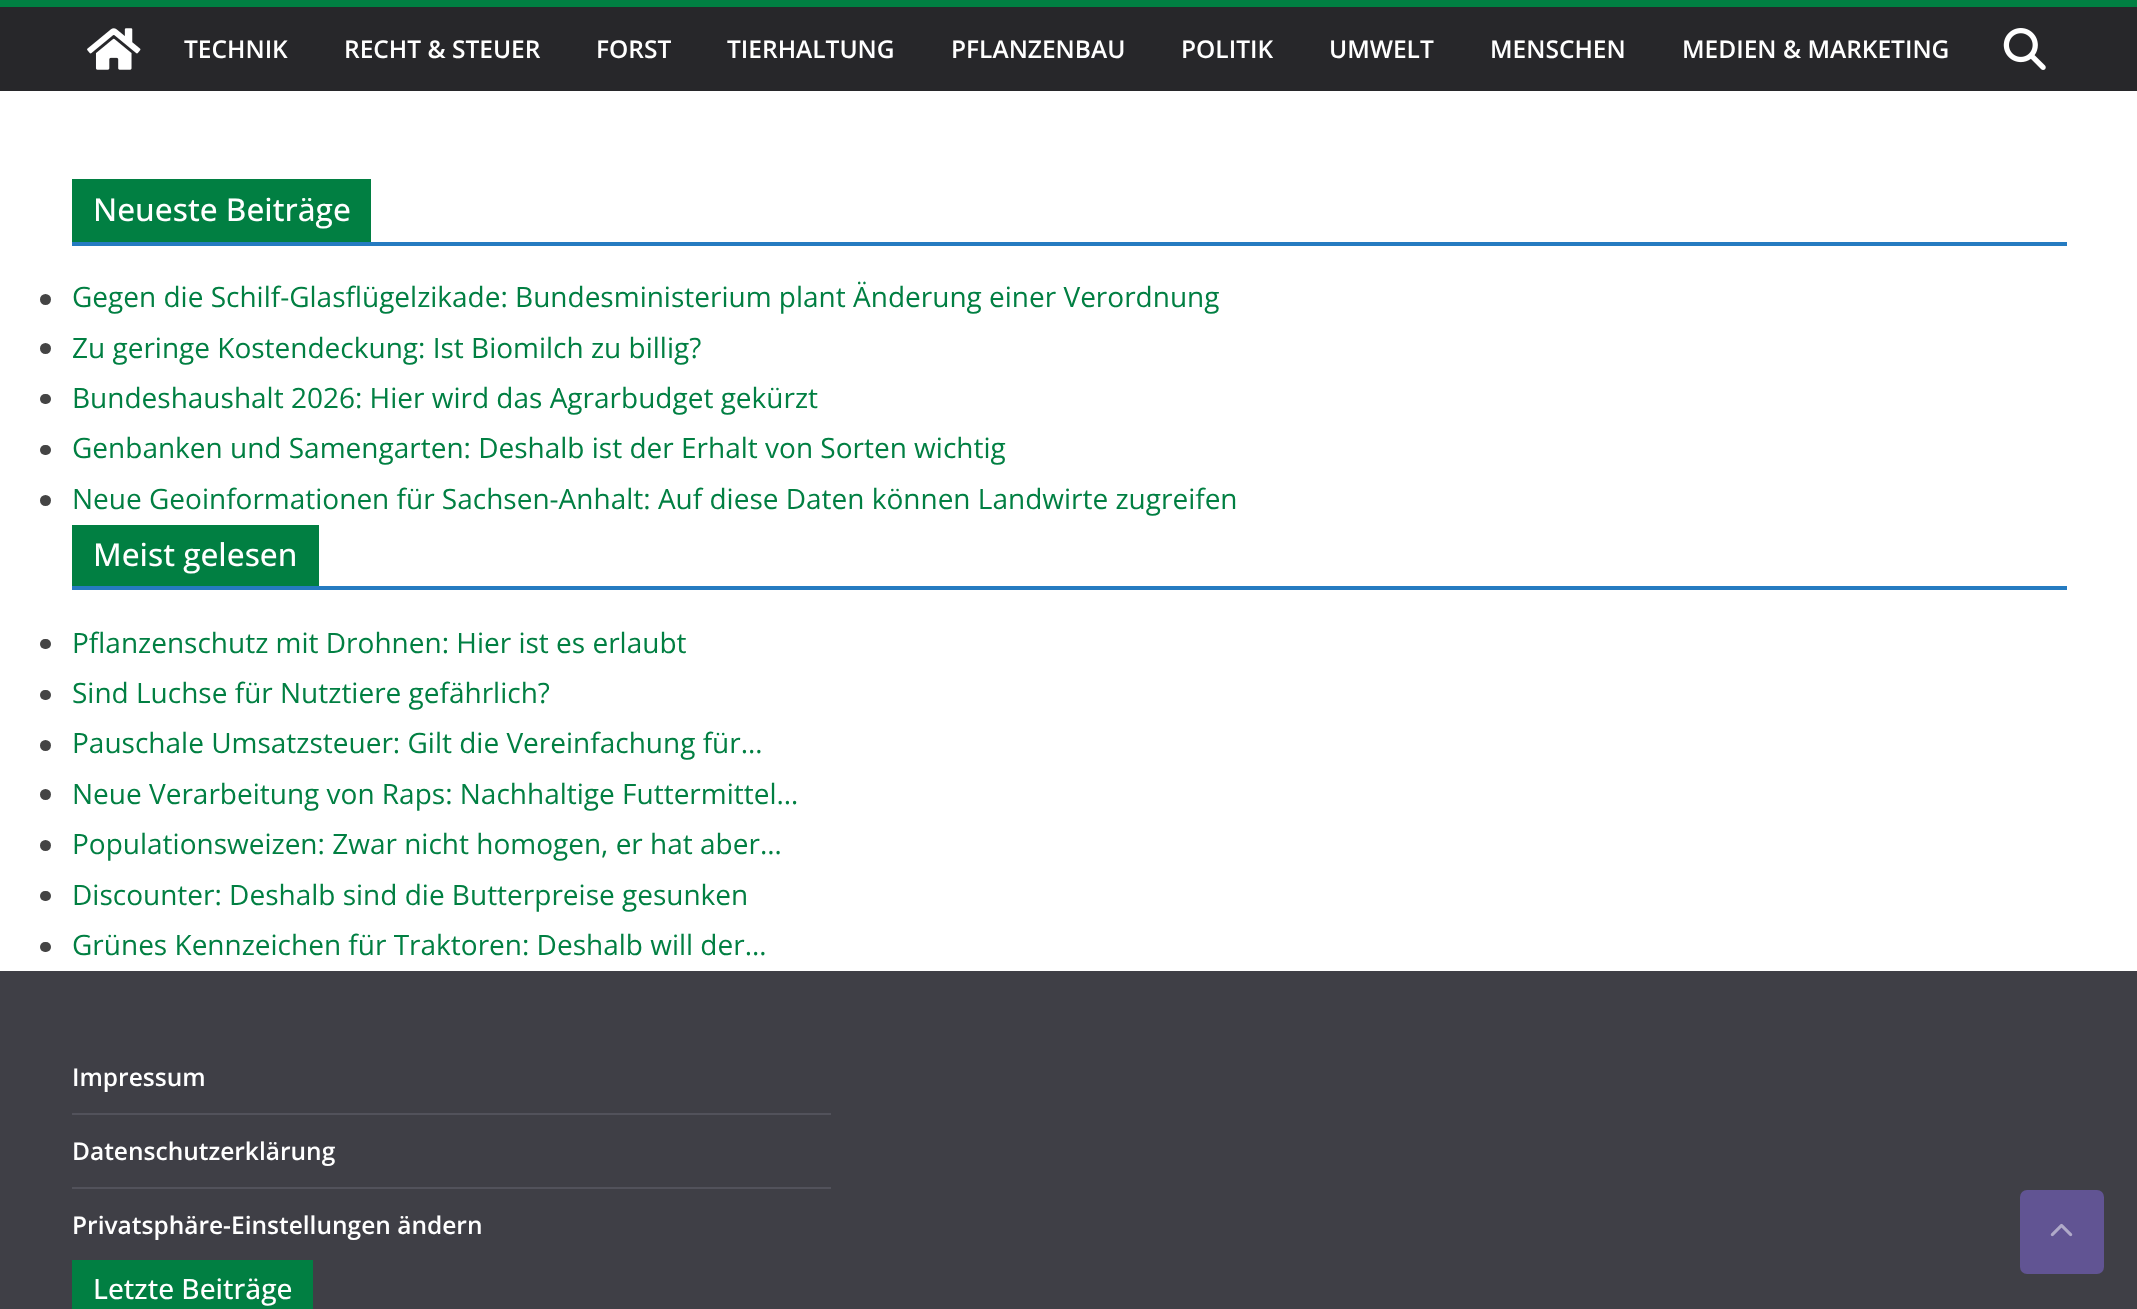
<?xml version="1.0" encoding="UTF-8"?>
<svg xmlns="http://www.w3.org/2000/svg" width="2137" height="1309">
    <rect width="100%" height="100%" fill="#FFFFFF"/>
    <rect x="0" y="7" width="2137" height="84" fill="#27272A"/>
    <rect x="0" y="0" width="2137" height="7" fill="#017F42"/>
    <image x="87" y="28" width="54" height="42" href="img_01.png"/>
    <text x="184" y="58" font-family="Open Sans" font-size="24.5" font-weight="600" fill="#FFFFFF">TECHNIK</text>
    <text x="344" y="58" font-family="Open Sans" font-size="24.5" font-weight="600" fill="#FFFFFF">RECHT &amp; STEUER</text>
    <text x="596" y="58" font-family="Open Sans" font-size="24.5" font-weight="600" fill="#FFFFFF">FORST</text>
    <text x="727" y="58" font-family="Open Sans" font-size="24.5" font-weight="600" fill="#FFFFFF">TIERHALTUNG</text>
    <text x="951" y="58" font-family="Open Sans" font-size="24.5" font-weight="600" fill="#FFFFFF">PFLANZENBAU</text>
    <text x="1181" y="58" font-family="Open Sans" font-size="24.5" font-weight="600" fill="#FFFFFF">POLITIK</text>
    <text x="1329" y="58" font-family="Open Sans" font-size="24.5" font-weight="600" fill="#FFFFFF">UMWELT</text>
    <text x="1490" y="58" font-family="Open Sans" font-size="24.5" font-weight="600" fill="#FFFFFF">MENSCHEN</text>
    <text x="1682" y="58" font-family="Open Sans" font-size="24.5" font-weight="600" fill="#FFFFFF">MEDIEN &amp; MARKETING</text>
    <image x="2003" y="28" width="43" height="42" href="img_02.png"/>
    <rect x="72" y="242" width="1995" height="4" fill="#257BC1"/>
    <rect x="72" y="179" width="299" height="63" fill="#017F42"/>
    <text x="93" y="221" font-family="Open Sans" font-size="31.5" font-weight="500" fill="#FFFFFF">Neueste Beiträge</text>
    <circle cx="45.5" cy="299.5" r="5.5" fill="#444444"/>
    <text x="72" y="307" font-family="Open Sans" font-size="28" fill="#017F42">Gegen die Schilf-Glasflügelzikade: Bundesministerium plant Änderung einer Verordnung</text>
    <circle cx="45.5" cy="348.5" r="5.5" fill="#444444"/>
    <text x="72" y="358" font-family="Open Sans" font-size="28" fill="#017F42">Zu geringe Kostendeckung: Ist Biomilch zu billig?</text>
    <rect x="40" y="394" width="11" height="10" rx="5" fill="#444444"/>
    <text x="72" y="408" font-family="Open Sans" font-size="28" fill="#017F42">Bundeshaushalt 2026: Hier wird das Agrarbudget gekürzt</text>
    <rect x="40" y="445" width="11" height="10" rx="5" fill="#444444"/>
    <text x="72" y="458" font-family="Open Sans" font-size="28" fill="#017F42">Genbanken und Samengarten: Deshalb ist der Erhalt von Sorten wichtig</text>
    <circle cx="45.5" cy="500.5" r="5.5" fill="#444444"/>
    <text x="72" y="509" font-family="Open Sans" font-size="28" fill="#017F42">Neue Geoinformationen für Sachsen-Anhalt: Auf diese Daten können Landwirte zugreifen</text>
    <rect x="72" y="586" width="1995" height="4" fill="#257BC1"/>
    <rect x="72" y="525" width="247" height="61" fill="#017F42"/>
    <text x="93" y="566" font-family="Open Sans" font-size="31.5" font-weight="500" fill="#FFFFFF">Meist gelesen</text>
    <rect x="40" y="639" width="11" height="10" rx="5" fill="#444444"/>
    <text x="72" y="653" font-family="Open Sans" font-size="28" fill="#017F42">Pflanzenschutz mit Drohnen: Hier ist es erlaubt</text>
    <rect x="40" y="690" width="11" height="10" rx="5" fill="#444444"/>
    <text x="72" y="703" font-family="Open Sans" font-size="28" fill="#017F42">Sind Luchse für Nutztiere gefährlich?</text>
    <circle cx="45.5" cy="745.5" r="5.5" fill="#444444"/>
    <text x="72" y="753" font-family="Open Sans" font-size="28" fill="#017F42">Pauschale Umsatzsteuer: Gilt die Vereinfachung für…</text>
    <circle cx="45.5" cy="794.5" r="5.5" fill="#444444"/>
    <text x="72" y="804" font-family="Open Sans" font-size="28" fill="#017F42">Neue Verarbeitung von Raps: Nachhaltige Futtermittel…</text>
    <circle cx="45.5" cy="845.5" r="5.5" fill="#444444"/>
    <text x="72" y="854" font-family="Open Sans" font-size="28" fill="#017F42">Populationsweizen: Zwar nicht homogen, er hat aber…</text>
    <rect x="40" y="891" width="11" height="10" rx="5" fill="#444444"/>
    <text x="72" y="905" font-family="Open Sans" font-size="28" fill="#017F42">Discounter: Deshalb sind die Butterpreise gesunken</text>
    <rect x="40" y="942" width="11" height="10" rx="5" fill="#444444"/>
    <text x="72" y="955" font-family="Open Sans" font-size="28" fill="#017F42">Grünes Kennzeichen für Traktoren: Deshalb will der…</text>
    <rect x="0" y="971" width="2137" height="338" fill="#3F3F46"/>
    <rect x="72" y="1113" width="759" height="2" fill="#52525B"/>
    <text x="72" y="1086" font-family="Open Sans" font-size="24.5" font-weight="600" fill="#FFFFFF">Impressum</text>
    <rect x="72" y="1187" width="759" height="2" fill="#52525B"/>
    <text x="72" y="1160" font-family="Open Sans" font-size="24.5" font-weight="600" fill="#FFFFFF">Datenschutzerklärung</text>
    <text x="72" y="1234" font-family="Open Sans" font-size="24.5" font-weight="600" fill="#FFFFFF">Privatsphäre-Einstellungen ändern</text>
    <rect x="72" y="1260" width="241" height="49" fill="#017F42"/>
    <text x="93" y="1299" font-family="Open Sans" font-size="28" font-weight="500" fill="#FFFFFF">Letzte Beiträge</text>
    <rect x="2020" y="1190" width="84" height="84" rx="7" fill="#615493"/>
    <image x="2050" y="1223" width="23" height="14" href="img_03.png"/>
</svg>
